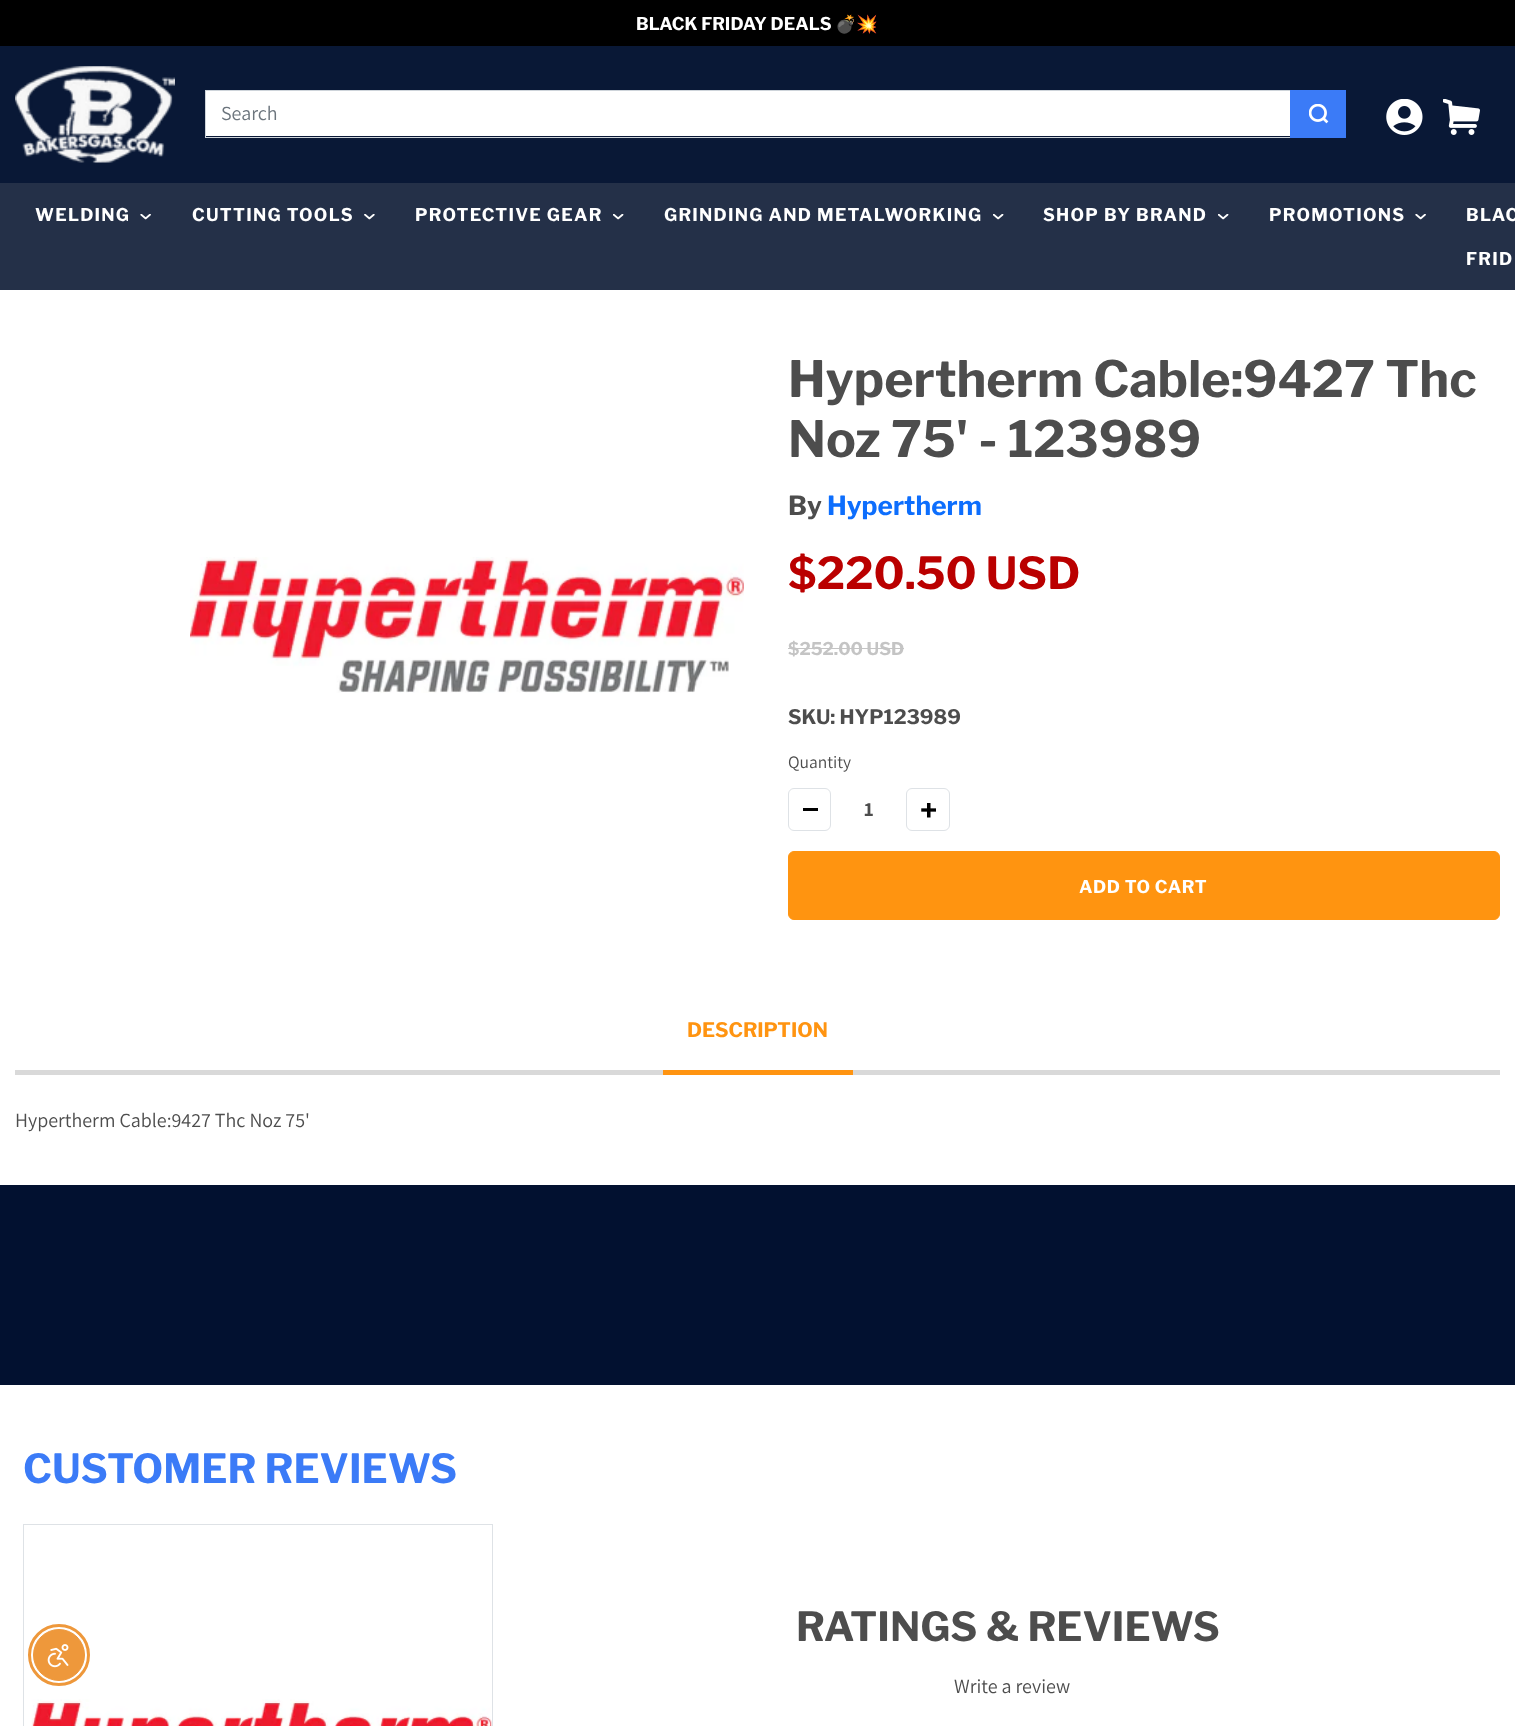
<?xml version="1.0" encoding="UTF-8"?>
<svg xmlns="http://www.w3.org/2000/svg" width="1515" height="1726">
    <rect width="100%" height="100%" fill="#FFFFFF"/>
    <rect x="0" y="0" width="1515" height="46" fill="#000000"/>
    <text x="636" y="30" font-family="Libre Franklin" font-size="17.5" font-weight="700" fill="#FFFFFF">BLACK FRIDAY DEALS</text>
    <text x="835" y="30" font-family="Noto Color Emoji" font-size="17.5" font-weight="700" fill="#FFFFFF">💣💥</text>
    <rect x="0" y="46" width="1515" height="137" fill="#091836"/>
    <image x="15" y="66" width="160" height="97" href="img_01.png"/>
    <rect x="206" y="91" width="1084" height="45" fill="#FFFFFF"/>
    <rect x="205.5" y="90.5" width="1085" height="47" fill="none" stroke="#CED4DA"/>
    <text x="221" y="120" font-family="Assistant" font-size="20" fill="#6C757D">Search</text>
    <rect x="1290" y="90" width="56" height="48" fill="#3B7BF7"/>
    <image x="1309" y="104" width="20" height="20" href="img_02.png"/>
    <image x="1386" y="99" width="37" height="36" href="img_03.png"/>
    <image x="1443" y="99" width="37" height="36" href="img_04.png"/>
    <rect x="0" y="183" width="1515" height="107" fill="#243048"/>
    <text x="35" y="221" font-family="Libre Franklin" font-size="17.5" font-weight="700" letter-spacing="1.25" fill="#FFFFFF">WELDING</text>
    <image x="140" y="214" width="11" height="6" href="img_05.png"/>
    <text x="192" y="221" font-family="Libre Franklin" font-size="17.5" font-weight="700" letter-spacing="1.25" fill="#FFFFFF">CUTTING TOOLS</text>
    <image x="364" y="214" width="11" height="6" href="img_06.png"/>
    <text x="415" y="221" font-family="Libre Franklin" font-size="17.5" font-weight="700" letter-spacing="1.25" fill="#FFFFFF">PROTECTIVE GEAR</text>
    <image x="613" y="214" width="11" height="6" href="img_07.png"/>
    <text x="664" y="221" font-family="Libre Franklin" font-size="17.5" font-weight="700" letter-spacing="1.25" fill="#FFFFFF">GRINDING AND METALWORKING</text>
    <image x="993" y="214" width="11" height="6" href="img_07.png"/>
    <text x="1043" y="221" font-family="Libre Franklin" font-size="17.5" font-weight="700" letter-spacing="1.25" fill="#FFFFFF">SHOP BY BRAND</text>
    <image x="1218" y="214" width="11" height="6" href="img_07.png"/>
    <text x="1269" y="221" font-family="Libre Franklin" font-size="17.5" font-weight="700" letter-spacing="1.25" fill="#FFFFFF">PROMOTIONS</text>
    <image x="1415" y="214" width="11" height="6" href="img_05.png"/>
    <text x="1466" y="221" font-family="Libre Franklin" font-size="17.5" font-weight="700" letter-spacing="1.25" fill="#FFFFFF">BLAC</text>
    <text x="1466" y="265" font-family="Libre Franklin" font-size="17.5" font-weight="700" letter-spacing="1.25" fill="#FFFFFF">FRID</text>
    <image x="190" y="557" width="554" height="136" href="img_08.png"/>
    <text font-family="Libre Franklin" font-size="50" font-weight="700" fill="#4D4D4D">
        <tspan x="788" y="397">Hypertherm Cable:9427 Thc</tspan>
        <tspan x="788" y="457">Noz 75' - 123989</tspan>
    </text>
    <text x="788" y="515" font-family="Libre Franklin" font-size="26.25" font-weight="700" fill="#4D4D4D">By</text>
    <text x="827" y="515" font-family="Libre Franklin" font-size="26.25" font-weight="700" fill="#0D6EFD">Hypertherm</text>
    <text x="788" y="589" font-family="Libre Franklin" font-size="44" font-weight="700" fill="#BA0000">$220.50 USD</text>
    <text x="788" y="655" font-family="Libre Franklin" font-size="17.5" font-weight="700" fill="#C4C4C4">$252.00 USD</text>
    <rect x="788" y="648" width="116" height="1" fill="#C4C4C4"/>
    <text x="788" y="724" font-family="Libre Franklin" font-size="20" font-weight="700" fill="#4D4D4D">SKU: HYP123989</text>
    <text x="788" y="768" font-family="Assistant" font-size="17.5" fill="#4D4D4D">Quantity</text>
    <rect x="788.5" y="788.5" width="42" height="42" rx="5.5" fill="none" stroke="#DEE2E6"/>
    <rect x="803" y="808" width="15" height="3" fill="#000000"/>
    <text x="864" y="816" font-family="Assistant" font-size="20" font-weight="700" fill="#4D4D4D">1</text>
    <rect x="906.5" y="788.5" width="43" height="42" rx="5.5" fill="none" stroke="#DEE2E6"/>
    <image x="921" y="803" width="15" height="15" href="img_09.png"/>
    <rect x="788.5" y="851.5" width="711" height="68" rx="5.5" fill="#FF9410" stroke="#FF9410"/>
    <text x="1079" y="893" font-family="Libre Franklin" font-size="17.5" font-weight="700" letter-spacing="0.6" fill="#FFFFFF">ADD TO CART</text>
    <rect x="15" y="1070" width="1485" height="5" fill="#D9D9D9"/>
    <rect x="663" y="1070" width="190" height="5" fill="#FF9411"/>
    <text x="687" y="1037" font-family="Libre Franklin" font-size="20" font-weight="700" fill="#FF9411">DESCRIPTION</text>
    <text x="15" y="1127" font-family="Assistant" font-size="20" fill="#4D4D4D">Hypertherm Cable:9427 Thc Noz 75'</text>
    <rect x="0" y="1185" width="1515" height="200" fill="#021130"/>
    <text x="23" y="1483" font-family="Libre Franklin" font-size="40" font-weight="700" fill="#3B7BF7">CUSTOMER REVIEWS</text>
    <image x="31" y="1699" width="461" height="27" href="img_10.png"/>
    <rect x="23.5" y="1524.5" width="469" height="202" fill="none" stroke="#DEE2E6"/>
    <text x="796" y="1641" font-family="Libre Franklin" font-size="40" font-weight="700" fill="#4D4D4D">RATINGS &amp; REVIEWS</text>
    <text x="954" y="1693" font-family="Assistant" font-size="20" fill="#4D4D4D">Write a review</text>
    <circle cx="59" cy="1655" r="29.5" fill="none" stroke="#EE983B" stroke-width="3"/>
    <circle cx="59" cy="1655" r="25.5" fill="#EE983B" stroke="#EE983B"/>
    <image x="47" y="1644" width="22" height="24" href="img_11.png"/>
</svg>
